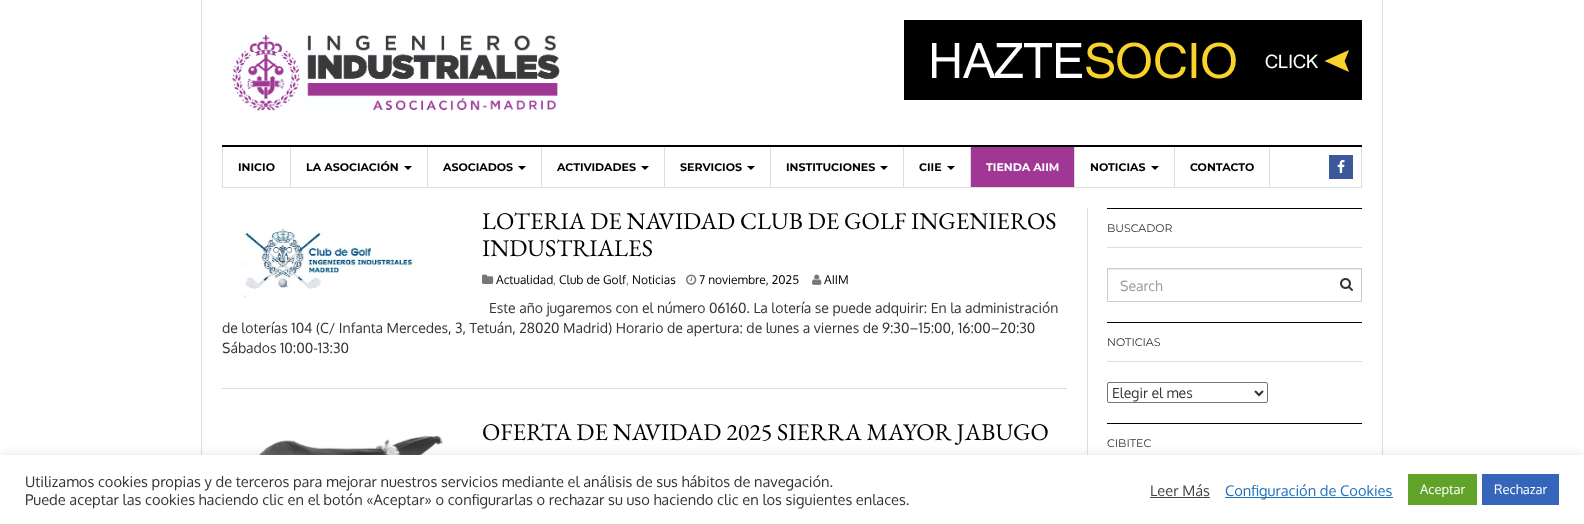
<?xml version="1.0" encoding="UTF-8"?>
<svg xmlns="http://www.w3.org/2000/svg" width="1584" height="524">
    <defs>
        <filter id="blur1" x="-50%" y="-200%" width="200%" height="500%"><feGaussianBlur stdDeviation="5"/></filter>
    </defs>
    <rect width="100%" height="100%" fill="#FFFFFF"/>
    <rect x="1382" y="0" width="1" height="455" fill="#DDDDDD"/>
    <rect x="201" y="0" width="1" height="455" fill="#DDDDDD"/>
    <rect x="222" y="145" width="1140" height="2" fill="#000000"/>
    <image x="232" y="35" width="328" height="76" href="img_01.png"/>
    <image x="904" y="20" width="458" height="80" href="img_02.png"/>
    <rect x="1361" y="147" width="1" height="41" fill="#DDDDDD"/>
    <rect x="222" y="187" width="1140" height="1" fill="#DDDDDD"/>
    <rect x="222" y="147" width="1" height="41" fill="#DDDDDD"/>
    <rect x="290" y="147" width="1" height="40" fill="#DDDDDD"/>
    <text x="238" y="171" font-family="Montserrat" font-size="11" font-weight="700" fill="#000000">INICIO</text>
    <rect x="427" y="147" width="1" height="40" fill="#DDDDDD"/>
    <text x="306" y="171" font-family="Montserrat" font-size="11" font-weight="700" fill="#000000">LA ASOCIACIÓN</text>
    <path d="M 404 166 H 412 L 408 170 Z" fill="#000000"/>
    <rect x="541" y="147" width="1" height="40" fill="#DDDDDD"/>
    <text x="443" y="171" font-family="Montserrat" font-size="11" font-weight="700" fill="#000000">ASOCIADOS</text>
    <path d="M 518 166 H 526 L 522 170 Z" fill="#000000"/>
    <rect x="664" y="147" width="1" height="40" fill="#DDDDDD"/>
    <text x="557" y="171" font-family="Montserrat" font-size="11" font-weight="700" fill="#000000">ACTIVIDADES</text>
    <path d="M 641 166 H 649 L 645 170 Z" fill="#000000"/>
    <rect x="770" y="147" width="1" height="40" fill="#DDDDDD"/>
    <text x="680" y="171" font-family="Montserrat" font-size="11" font-weight="700" fill="#000000">SERVICIOS</text>
    <path d="M 747 166 H 755 L 751 170 Z" fill="#000000"/>
    <rect x="903" y="147" width="1" height="40" fill="#DDDDDD"/>
    <text x="786" y="171" font-family="Montserrat" font-size="11" font-weight="700" fill="#000000">INSTITUCIONES</text>
    <path d="M 880 166 H 888 L 884 170 Z" fill="#000000"/>
    <rect x="970" y="147" width="1" height="40" fill="#DDDDDD"/>
    <text x="919" y="171" font-family="Montserrat" font-size="11" font-weight="700" fill="#000000">CIIE</text>
    <path d="M 947 166 H 955 L 951 170 Z" fill="#000000"/>
    <rect x="971" y="147" width="103" height="40" fill="#A03794"/>
    <rect x="1074" y="147" width="1" height="40" fill="#DDDDDD"/>
    <text x="986" y="171" font-family="Montserrat" font-size="11" font-weight="700" fill="#FFFFFF">TIENDA AIIM</text>
    <rect x="1174" y="147" width="1" height="40" fill="#DDDDDD"/>
    <text x="1090" y="171" font-family="Montserrat" font-size="11" font-weight="700" fill="#000000">NOTICIAS</text>
    <path d="M 1151 166 H 1159 L 1155 170 Z" fill="#000000"/>
    <rect x="1269" y="147" width="1" height="40" fill="#DDDDDD"/>
    <text x="1190" y="171" font-family="Montserrat" font-size="11" font-weight="700" fill="#000000">CONTACTO</text>
    <rect x="1329" y="155" width="24" height="24" fill="#3B5998"/>
    <image x="1337" y="160" width="8" height="13" href="img_03.png"/>
    <rect x="1087" y="208" width="1" height="247" fill="#DDDDDD"/>
    <rect x="222" y="388" width="845" height="1" fill="#DDDDDD"/>
    <text font-family="EB Garamond" font-size="24" fill="#000000">
        <tspan x="482" y="229">LOTERIA DE NAVIDAD CLUB DE GOLF INGENIEROS</tspan>
        <tspan x="482" y="256">INDUSTRIALES</tspan>
    </text>
    <image x="482" y="274" width="12" height="10" href="img_04.png"/>
    <text x="496" y="284" font-family="Oxygen" font-size="12" fill="#000000">Actualidad</text>
    <text x="553" y="284" font-family="Oxygen" font-size="12" fill="#777777">,</text>
    <text x="559" y="284" font-family="Oxygen" font-size="12" fill="#000000">Club de Golf</text>
    <text x="626" y="284" font-family="Oxygen" font-size="12" fill="#777777">,</text>
    <text x="632" y="284" font-family="Oxygen" font-size="12" fill="#000000">Noticias</text>
    <image x="686" y="274" width="11" height="11" href="img_05.png"/>
    <text x="699" y="284" font-family="Oxygen" font-size="12" fill="#000000">7 noviembre, 2025</text>
    <image x="812" y="274" width="10" height="11" href="img_06.png"/>
    <text x="824" y="284" font-family="Oxygen" font-size="12" fill="#000000">AIIM</text>
    <text x="489" y="313" font-family="Oxygen" font-size="14" fill="#333333">Este año jugaremos con el número 06160. La lotería se puede adquirir: En la administración</text>
    <text font-family="Oxygen" font-size="14" fill="#333333">
        <tspan x="222" y="333">de loterías 104 (C/ Infanta Mercedes, 3, Tetuán, 28020 Madrid) Horario de apertura: de lunes a viernes de 9:30–15:00, 16:00–20:30</tspan>
        <tspan x="222" y="353">Sábados 10:00-13:30</tspan>
    </text>
    <image x="244" y="228" width="170" height="70" href="img_07.png"/>
    <image x="231" y="435" width="212" height="20" href="img_08.png"/>
    <text x="482" y="440" font-family="EB Garamond" font-size="24" fill="#000000">OFERTA DE NAVIDAD 2025 SIERRA MAYOR JABUGO</text>
    <rect x="1107" y="208" width="255" height="1" fill="#000000"/>
    <rect x="1107" y="247" width="255" height="1" fill="#DDDDDD"/>
    <text x="1107" y="232" font-family="Montserrat" font-size="11" fill="#333333">BUSCADOR</text>
    <rect x="1108" y="269" width="253" height="1" fill="#ECECEC"/>
    <rect x="1107.5" y="268.5" width="254" height="33" fill="none" stroke="#CCCCCC"/>
    <text x="1120" y="291" font-family="Oxygen" font-size="14" fill="#999999">Search</text>
    <image x="1340" y="278" width="13" height="13" href="img_09.png"/>
    <rect x="1107" y="322" width="255" height="1" fill="#000000"/>
    <rect x="1107" y="361" width="255" height="1" fill="#DDDDDD"/>
    <text x="1107" y="346" font-family="Montserrat" font-size="11" fill="#333333">NOTICIAS</text>
    <rect x="1107.5" y="382.5" width="160" height="20" rx="1.5" fill="none" stroke="#767676"/>
    <path d="M 1255 391 L 1259 395 L 1263 391" fill="none" stroke="#333333" stroke-width="2"/>
    <text x="1112" y="398" font-family="Oxygen" font-size="14" fill="#333333">Elegir el mes</text>
    <rect x="1107" y="423" width="255" height="1" fill="#000000"/>
    <text x="1107" y="447" font-family="Montserrat" font-size="11" fill="#333333">CIBITEC</text>
    <rect x="0" y="454" width="1584" height="69" fill="#ACABAB" fill-opacity="0.3" filter="url(#blur1)"/>
    <rect x="0" y="455" width="1584" height="69" fill="#FFFFFF"/>
    <text font-family="Oxygen" font-size="14.67" fill="#333333">
        <tspan x="25" y="487">Utilizamos cookies propias y de terceros para mejorar nuestros servicios mediante el análisis de sus hábitos de navegación.</tspan>
        <tspan x="25" y="505">Puede aceptar las cookies haciendo clic en el botón «Aceptar» o configurarlas o rechazar su uso haciendo clic en los siguientes enlaces.</tspan>
    </text>
    <text x="1150" y="496" font-family="Oxygen" font-size="14.67" fill="#444444">Leer Más</text>
    <rect x="1150" y="497" width="60" height="1" fill="#444444"/>
    <rect x="1225" y="497" width="168" height="1" fill="#1E73BE"/>
    <text x="1225" y="496" font-family="Oxygen" font-size="14.67" fill="#1E73BE">Configuración de Cookies</text>
    <rect x="1408" y="474" width="69" height="31" fill="#61A229"/>
    <text x="1420" y="494" font-family="Oxygen" font-size="13" fill="#FFFFFF">Aceptar</text>
    <rect x="1482" y="474" width="77" height="31" fill="#3566BB"/>
    <text x="1494" y="494" font-family="Oxygen" font-size="13" fill="#FFFFFF">Rechazar</text>
</svg>
